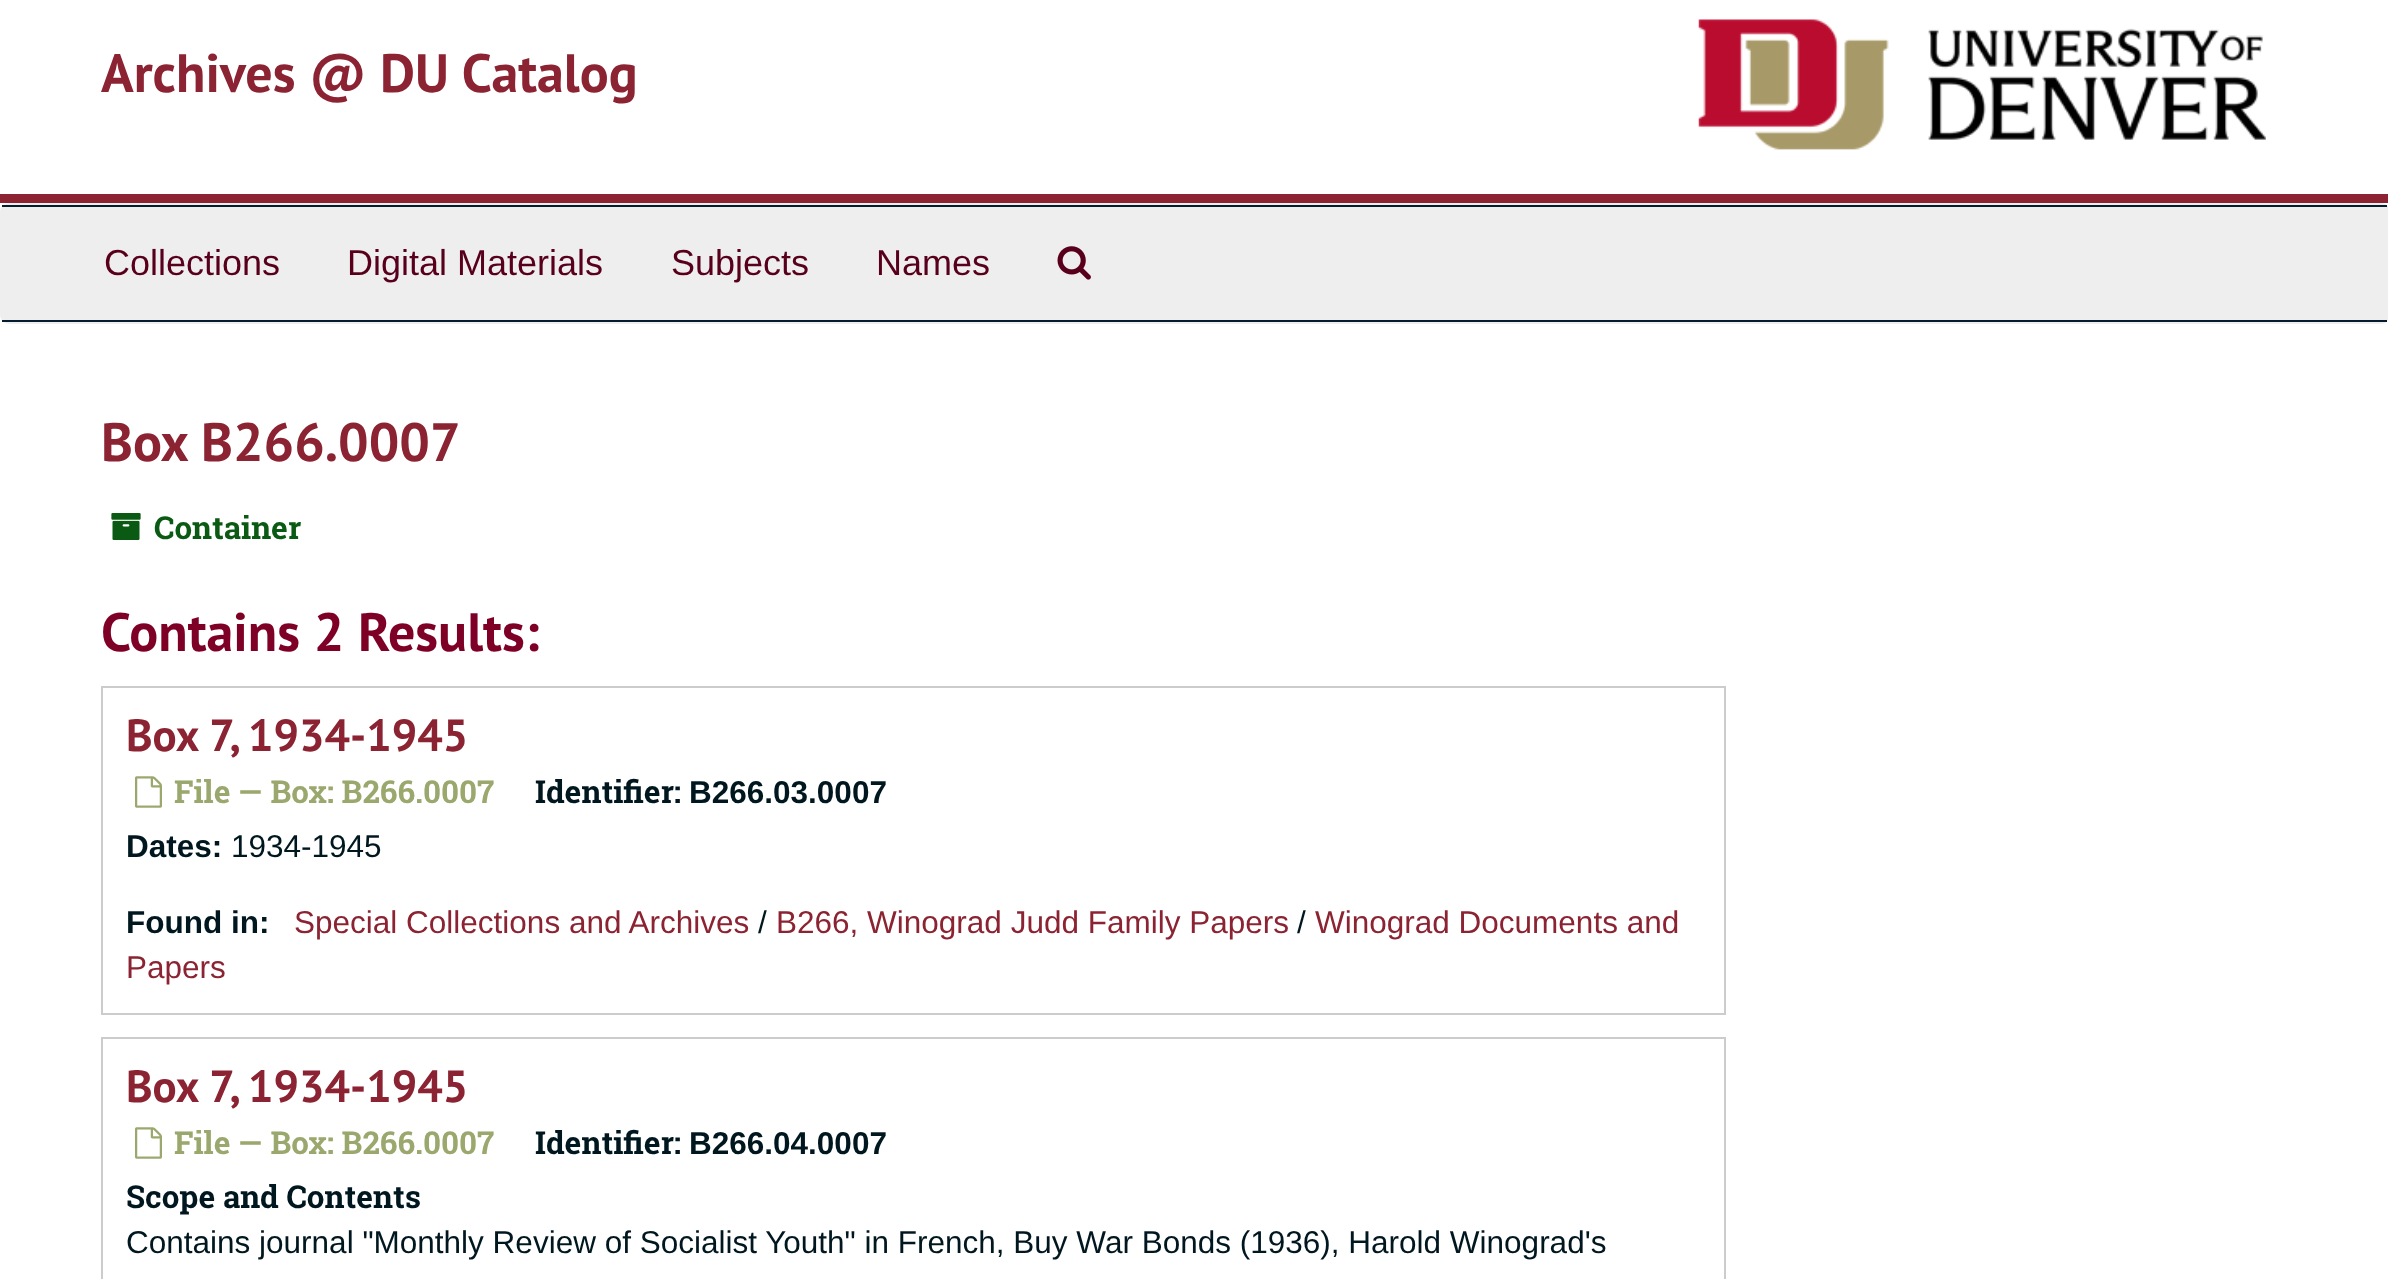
<?xml version="1.0" encoding="UTF-8"?>
<svg xmlns="http://www.w3.org/2000/svg" width="2388" height="1279">
    <rect width="100%" height="100%" fill="#FFFFFF"/>
    <rect x="0" y="194" width="2388" height="9" fill="#8B2332"/>
    <text x="101" y="92" font-family="PT Sans" font-size="54" font-weight="700" fill="#8B2332">Archives @ DU Catalog</text>
    <image x="1698" y="19" width="568" height="131" href="img_01.png"/>
    <rect x="1" y="204" width="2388" height="119" rx="8" fill="#EEEEEE" stroke="#EEEEEE" stroke-width="2"/>
    <rect x="2" y="205" width="2385" height="2" fill="#041C2F"/>
    <rect x="2" y="320" width="2385" height="2" fill="#041C2F"/>
    <text x="104" y="275" font-family="Liberation Sans" font-size="36" fill="#58001B">Collections</text>
    <text x="347" y="275" font-family="Liberation Sans" font-size="36" fill="#58001B">Digital Materials</text>
    <text x="671" y="275" font-family="Liberation Sans" font-size="36" fill="#58001B">Subjects</text>
    <text x="876" y="275" font-family="Liberation Sans" font-size="36" fill="#58001B">Names</text>
    <image x="1057" y="246" width="34" height="34" href="img_02.png"/>
    <text x="101" y="461" font-family="PT Sans" font-size="54" font-weight="700" fill="#8B2332">Box B266.0007</text>
    <image x="111" y="513" width="30" height="27" href="img_03.png"/>
    <text x="154" y="539" font-family="Roboto Slab" font-size="31.5" font-weight="700" fill="#0B5A14">Container</text>
    <text x="101" y="651" font-family="PT Sans" font-size="54" font-weight="700" fill="#7E0026">Contains 2 Results:</text>
    <rect x="102" y="687" width="1623" height="327" fill="none" stroke="#CCCCCC" stroke-width="2"/>
    <text x="126" y="751" font-family="PT Sans" font-size="45" font-weight="700" fill="#8B2332">Box 7, 1934-1945</text>
    <image x="135" y="776" width="27" height="32" href="img_04.png"/>
    <text x="174" y="803" font-family="Roboto Slab" font-size="31.5" font-weight="700" fill="#9AA86E">File — Box: B266.0007</text>
    <text x="535" y="803" font-family="Roboto Slab" font-size="31.5" font-weight="700" fill="#00171F">Identifier:</text>
    <text x="689" y="803" font-family="Liberation Sans" font-size="31.5" font-weight="700" fill="#00171F">B266.03.0007</text>
    <text x="126" y="857" font-family="Liberation Sans" font-size="31.5" font-weight="700" fill="#00171F">Dates:</text>
    <text x="231" y="857" font-family="Liberation Sans" font-size="31.5" fill="#00171F">1934-1945</text>
    <text x="126" y="933" font-family="Liberation Sans" font-size="31.5" font-weight="700" fill="#00171F">Found in:</text>
    <text x="294" y="933" font-family="Liberation Sans" font-size="31.5" fill="#8B2332">Special Collections and Archives</text>
    <text x="758" y="933" font-family="Liberation Sans" font-size="31.5" fill="#00171F">/</text>
    <text x="776" y="933" font-family="Liberation Sans" font-size="31.5" fill="#8B2332">B266, Winograd Judd Family Papers</text>
    <text x="1297" y="933" font-family="Liberation Sans" font-size="31.5" fill="#00171F">/</text>
    <text x="1315" y="933" font-family="Liberation Sans" font-size="31.5" fill="#8B2332">Winograd Documents and</text>
    <text x="126" y="978" font-family="Liberation Sans" font-size="31.5" fill="#8B2332">Papers</text>
    <rect x="102" y="1038" width="1623" height="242" fill="none" stroke="#CCCCCC" stroke-width="2"/>
    <text x="126" y="1102" font-family="PT Sans" font-size="45" font-weight="700" fill="#8B2332">Box 7, 1934-1945</text>
    <image x="135" y="1127" width="27" height="32" href="img_04.png"/>
    <text x="174" y="1154" font-family="Roboto Slab" font-size="31.5" font-weight="700" fill="#9AA86E">File — Box: B266.0007</text>
    <text x="535" y="1154" font-family="Roboto Slab" font-size="31.5" font-weight="700" fill="#00171F">Identifier:</text>
    <text x="689" y="1154" font-family="Liberation Sans" font-size="31.5" font-weight="700" fill="#00171F">B266.04.0007</text>
    <text x="126" y="1208" font-family="Roboto Slab" font-size="31.5" font-weight="700" fill="#00171F">Scope and Contents</text>
    <text x="126" y="1253" font-family="Liberation Sans" font-size="31.5" fill="#00171F">Contains journal "Monthly Review of Socialist Youth" in French, Buy War Bonds (1936), Harold Winograd's</text>
</svg>
